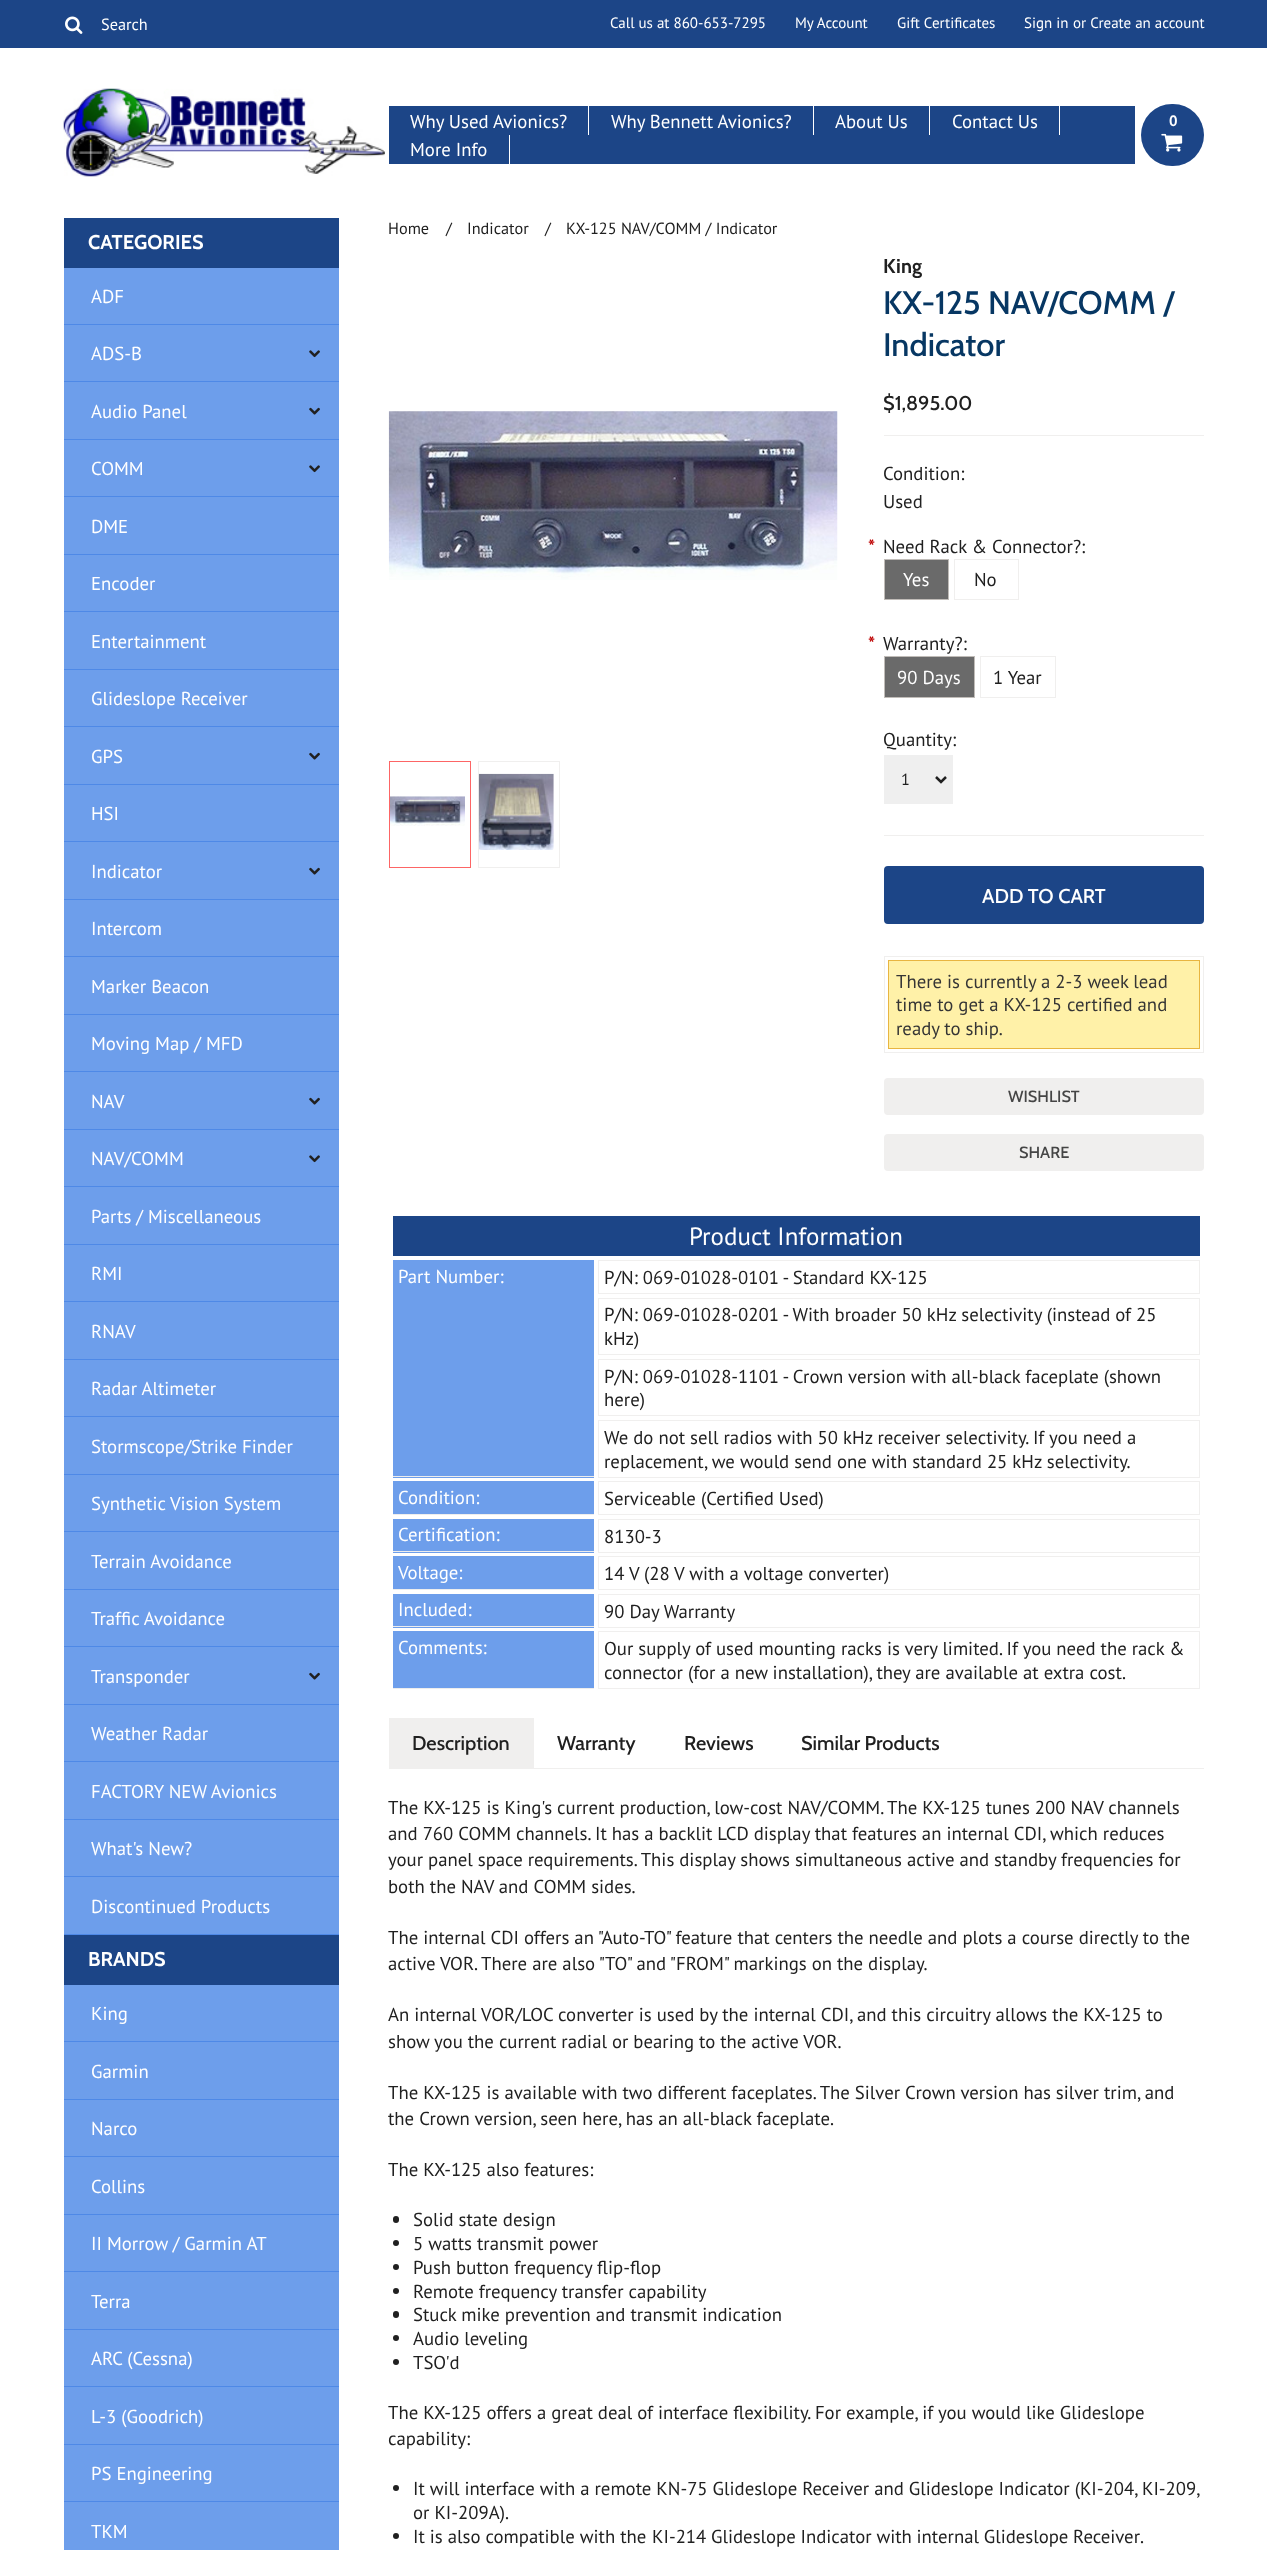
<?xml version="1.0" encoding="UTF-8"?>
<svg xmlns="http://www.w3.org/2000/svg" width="1267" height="2550">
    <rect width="100%" height="100%" fill="#FFFFFF"/>
    <rect x="0" y="0" width="1267" height="48" fill="#1C4587"/>
    <image x="65" y="16" width="18" height="18" href="img_01.png"/>
    <text x="101" y="30" font-family="PT Sans" font-size="16.25" fill="#FFFFFF">Search</text>
    <text x="610" y="28" font-family="PT Sans" font-size="15" fill="#FFFFFF">Call us at 860-653-7295</text>
    <text x="795" y="28" font-family="PT Sans" font-size="15" fill="#FFFFFF">My Account</text>
    <text x="897" y="28" font-family="PT Sans" font-size="15" fill="#FFFFFF">Gift Certificates</text>
    <text x="1024" y="28" font-family="PT Sans" font-size="15" fill="#FFFFFF">Sign in</text>
    <text x="1073" y="28" font-family="PT Sans" font-size="15" fill="#FFFFFF">or Create an account</text>
    <image x="63" y="88" width="322" height="89" href="img_02.png"/>
    <rect x="389" y="106" width="746" height="58" fill="#1C4587"/>
    <rect x="588" y="106" width="1" height="29" fill="#FFFFFF"/>
    <text x="410" y="128" font-family="PT Sans" font-size="18.75" fill="#FFFFFF">Why Used Avionics?</text>
    <rect x="813" y="106" width="1" height="29" fill="#FFFFFF"/>
    <text x="611" y="128" font-family="PT Sans" font-size="18.75" fill="#FFFFFF">Why Bennett Avionics?</text>
    <rect x="929" y="106" width="1" height="29" fill="#FFFFFF"/>
    <text x="835" y="128" font-family="PT Sans" font-size="18.75" fill="#FFFFFF">About Us</text>
    <rect x="1059" y="106" width="1" height="29" fill="#FFFFFF"/>
    <text x="952" y="128" font-family="PT Sans" font-size="18.75" fill="#FFFFFF">Contact Us</text>
    <rect x="509" y="135" width="1" height="29" fill="#FFFFFF"/>
    <text x="410" y="156" font-family="PT Sans" font-size="18.75" fill="#FFFFFF">More Info</text>
    <rect x="1141" y="104" width="63" height="62" rx="31" fill="#1C4587"/>
    <text x="1169" y="126" font-family="PT Sans" font-size="15" font-weight="700" fill="#FFFFFF">0</text>
    <image x="1161" y="133" width="22" height="19" href="img_03.png"/>
    <rect x="64" y="268" width="275" height="1666" fill="#6D9EEB"/>
    <rect x="64" y="218" width="275" height="50" fill="#1C4587"/>
    <text x="88" y="249" font-family="Cabin" font-size="20" font-weight="700" fill="#FFFFFF">CATEGORIES</text>
    <rect x="64" y="324" width="275" height="1" fill="#4E89E7"/>
    <text x="91" y="303" font-family="PT Sans" font-size="18.75" fill="#FFFFFF">ADF</text>
    <rect x="64" y="381" width="275" height="1" fill="#4E89E7"/>
    <text x="91" y="360" font-family="PT Sans" font-size="18.75" fill="#FFFFFF">ADS-B</text>
    <image x="309" y="350" width="11" height="8" href="img_04.png"/>
    <rect x="64" y="439" width="275" height="1" fill="#4E89E7"/>
    <text x="91" y="418" font-family="PT Sans" font-size="18.75" fill="#FFFFFF">Audio Panel</text>
    <image x="309" y="407" width="11" height="8" href="img_05.png"/>
    <rect x="64" y="496" width="275" height="1" fill="#4E89E7"/>
    <text x="91" y="475" font-family="PT Sans" font-size="18.75" fill="#FFFFFF">COMM</text>
    <image x="309" y="465" width="11" height="8" href="img_04.png"/>
    <rect x="64" y="554" width="275" height="1" fill="#4E89E7"/>
    <text x="91" y="533" font-family="PT Sans" font-size="18.75" fill="#FFFFFF">DME</text>
    <rect x="64" y="611" width="275" height="1" fill="#4E89E7"/>
    <text x="91" y="590" font-family="PT Sans" font-size="18.75" fill="#FFFFFF">Encoder</text>
    <rect x="64" y="669" width="275" height="1" fill="#4E89E7"/>
    <text x="91" y="648" font-family="PT Sans" font-size="18.75" fill="#FFFFFF">Entertainment</text>
    <rect x="64" y="726" width="275" height="1" fill="#4E89E7"/>
    <text x="91" y="705" font-family="PT Sans" font-size="18.75" fill="#FFFFFF">Glideslope Receiver</text>
    <rect x="64" y="784" width="275" height="1" fill="#4E89E7"/>
    <text x="91" y="763" font-family="PT Sans" font-size="18.75" fill="#FFFFFF">GPS</text>
    <image x="309" y="752" width="11" height="8" href="img_05.png"/>
    <rect x="64" y="841" width="275" height="1" fill="#4E89E7"/>
    <text x="91" y="820" font-family="PT Sans" font-size="18.75" fill="#FFFFFF">HSI</text>
    <rect x="64" y="899" width="275" height="1" fill="#4E89E7"/>
    <text x="91" y="878" font-family="PT Sans" font-size="18.75" fill="#FFFFFF">Indicator</text>
    <image x="309" y="867" width="11" height="8" href="img_05.png"/>
    <rect x="64" y="956" width="275" height="1" fill="#4E89E7"/>
    <text x="91" y="935" font-family="PT Sans" font-size="18.75" fill="#FFFFFF">Intercom</text>
    <rect x="64" y="1014" width="275" height="1" fill="#4E89E7"/>
    <text x="91" y="993" font-family="PT Sans" font-size="18.75" fill="#FFFFFF">Marker Beacon</text>
    <rect x="64" y="1071" width="275" height="1" fill="#4E89E7"/>
    <text x="91" y="1050" font-family="PT Sans" font-size="18.75" fill="#FFFFFF">Moving Map / MFD</text>
    <rect x="64" y="1129" width="275" height="1" fill="#4E89E7"/>
    <text x="91" y="1108" font-family="PT Sans" font-size="18.75" fill="#FFFFFF">NAV</text>
    <image x="309" y="1097" width="11" height="8" href="img_05.png"/>
    <rect x="64" y="1186" width="275" height="1" fill="#4E89E7"/>
    <text x="91" y="1165" font-family="PT Sans" font-size="18.75" fill="#FFFFFF">NAV/COMM</text>
    <image x="309" y="1155" width="11" height="8" href="img_04.png"/>
    <rect x="64" y="1244" width="275" height="1" fill="#4E89E7"/>
    <text x="91" y="1223" font-family="PT Sans" font-size="18.75" fill="#FFFFFF">Parts / Miscellaneous</text>
    <rect x="64" y="1301" width="275" height="1" fill="#4E89E7"/>
    <text x="91" y="1280" font-family="PT Sans" font-size="18.75" fill="#FFFFFF">RMI</text>
    <rect x="64" y="1359" width="275" height="1" fill="#4E89E7"/>
    <text x="91" y="1338" font-family="PT Sans" font-size="18.75" fill="#FFFFFF">RNAV</text>
    <rect x="64" y="1416" width="275" height="1" fill="#4E89E7"/>
    <text x="91" y="1395" font-family="PT Sans" font-size="18.75" fill="#FFFFFF">Radar Altimeter</text>
    <rect x="64" y="1474" width="275" height="1" fill="#4E89E7"/>
    <text x="91" y="1453" font-family="PT Sans" font-size="18.75" fill="#FFFFFF">Stormscope/Strike Finder</text>
    <rect x="64" y="1531" width="275" height="1" fill="#4E89E7"/>
    <text x="91" y="1510" font-family="PT Sans" font-size="18.75" fill="#FFFFFF">Synthetic Vision System</text>
    <rect x="64" y="1589" width="275" height="1" fill="#4E89E7"/>
    <text x="91" y="1568" font-family="PT Sans" font-size="18.75" fill="#FFFFFF">Terrain Avoidance</text>
    <rect x="64" y="1646" width="275" height="1" fill="#4E89E7"/>
    <text x="91" y="1625" font-family="PT Sans" font-size="18.75" fill="#FFFFFF">Traffic Avoidance</text>
    <rect x="64" y="1704" width="275" height="1" fill="#4E89E7"/>
    <text x="91" y="1683" font-family="PT Sans" font-size="18.75" fill="#FFFFFF">Transponder</text>
    <image x="309" y="1672" width="11" height="8" href="img_05.png"/>
    <rect x="64" y="1761" width="275" height="1" fill="#4E89E7"/>
    <text x="91" y="1740" font-family="PT Sans" font-size="18.75" fill="#FFFFFF">Weather Radar</text>
    <rect x="64" y="1819" width="275" height="1" fill="#4E89E7"/>
    <text x="91" y="1798" font-family="PT Sans" font-size="18.75" fill="#FFFFFF">FACTORY NEW Avionics</text>
    <rect x="64" y="1876" width="275" height="1" fill="#4E89E7"/>
    <text x="91" y="1855" font-family="PT Sans" font-size="18.75" fill="#FFFFFF">What's New?</text>
    <rect x="64" y="1934" width="275" height="1" fill="#4E89E7"/>
    <text x="91" y="1913" font-family="PT Sans" font-size="18.75" fill="#FFFFFF">Discontinued Products</text>
    <rect x="64" y="1985" width="275" height="565" fill="#6D9EEB"/>
    <rect x="64" y="1935" width="275" height="50" fill="#1C4587"/>
    <text x="88" y="1966" font-family="Cabin" font-size="20" font-weight="700" fill="#FFFFFF">BRANDS</text>
    <rect x="64" y="2041" width="275" height="1" fill="#4E89E7"/>
    <text x="91" y="2020" font-family="PT Sans" font-size="18.75" fill="#FFFFFF">King</text>
    <rect x="64" y="2099" width="275" height="1" fill="#4E89E7"/>
    <text x="91" y="2078" font-family="PT Sans" font-size="18.75" fill="#FFFFFF">Garmin</text>
    <rect x="64" y="2156" width="275" height="1" fill="#4E89E7"/>
    <text x="91" y="2135" font-family="PT Sans" font-size="18.75" fill="#FFFFFF">Narco</text>
    <rect x="64" y="2214" width="275" height="1" fill="#4E89E7"/>
    <text x="91" y="2193" font-family="PT Sans" font-size="18.75" fill="#FFFFFF">Collins</text>
    <rect x="64" y="2271" width="275" height="1" fill="#4E89E7"/>
    <text x="91" y="2250" font-family="PT Sans" font-size="18.75" fill="#FFFFFF">II Morrow / Garmin AT</text>
    <rect x="64" y="2329" width="275" height="1" fill="#4E89E7"/>
    <text x="91" y="2308" font-family="PT Sans" font-size="18.75" fill="#FFFFFF">Terra</text>
    <rect x="64" y="2386" width="275" height="1" fill="#4E89E7"/>
    <text x="91" y="2365" font-family="PT Sans" font-size="18.75" fill="#FFFFFF">ARC (Cessna)</text>
    <rect x="64" y="2444" width="275" height="1" fill="#4E89E7"/>
    <text x="91" y="2423" font-family="PT Sans" font-size="18.75" fill="#FFFFFF">L-3 (Goodrich)</text>
    <rect x="64" y="2501" width="275" height="1" fill="#4E89E7"/>
    <text x="91" y="2480" font-family="PT Sans" font-size="18.75" fill="#FFFFFF">PS Engineering</text>
    <text x="91" y="2538" font-family="PT Sans" font-size="18.75" fill="#FFFFFF">TKM</text>
    <text x="388" y="234" font-family="PT Sans" font-size="16.25" fill="#202020">Home</text>
    <text x="446" y="234" font-family="PT Sans" font-size="16.25" fill="#202020">/</text>
    <text x="467" y="234" font-family="PT Sans" font-size="16.25" fill="#202020">Indicator</text>
    <text x="545" y="234" font-family="PT Sans" font-size="16.25" fill="#202020">/</text>
    <text x="566" y="234" font-family="PT Sans" font-size="16.25" fill="#202020">KX-125 NAV/COMM / Indicator</text>
    <image x="388" y="411" width="450" height="169" href="img_06.png"/>
    <rect x="389.5" y="761.5" width="81" height="106" fill="none" stroke="#FD6565"/>
    <image x="390" y="796" width="75" height="30" href="img_07.png"/>
    <rect x="478.5" y="761.5" width="81" height="106" fill="none" stroke="#F0EFEE"/>
    <image x="478" y="773" width="76" height="77" href="img_08.png"/>
    <rect x="884" y="435" width="320" height="1" fill="#F0EFEE"/>
    <text x="883" y="273" font-family="Cabin" font-size="20" font-weight="700" fill="#202020">King</text>
    <text font-family="Cabin" font-size="32.5" font-weight="500" fill="#073763">
        <tspan x="883" y="314">KX-125 NAV/COMM /</tspan>
        <tspan x="883" y="356">Indicator</tspan>
    </text>
    <text x="883" y="410" font-family="Cabin" font-size="20" font-weight="500" fill="#202020">$1,895.00</text>
    <text font-family="PT Sans" font-size="18.75" fill="#202020">
        <tspan x="883" y="480">Condition:</tspan>
        <tspan x="883" y="508">Used</tspan>
    </text>
    <text x="868" y="553" font-family="PT Sans" font-size="18.75" font-weight="700" fill="#BE0303">*</text>
    <text x="883" y="553" font-family="PT Sans" font-size="18.75" fill="#202020">Need Rack &amp; Connector?:</text>
    <rect x="884.5" y="559.5" width="64" height="40" fill="#6A6A6A" stroke="#C0BCB8"/>
    <text x="903" y="586" font-family="PT Sans" font-size="18.75" fill="#FFFFFF">Yes</text>
    <rect x="954.5" y="559.5" width="64" height="40" fill="none" stroke="#F0EFEE"/>
    <text x="974" y="586" font-family="PT Sans" font-size="18.75" fill="#202020">No</text>
    <text x="868" y="650" font-family="PT Sans" font-size="18.75" font-weight="700" fill="#BE0303">*</text>
    <text x="883" y="650" font-family="PT Sans" font-size="18.75" fill="#202020">Warranty?:</text>
    <rect x="884.5" y="656.5" width="90" height="41" fill="#6A6A6A" stroke="#C0BCB8"/>
    <text x="897" y="684" font-family="PT Sans" font-size="18.75" fill="#FFFFFF">90 Days</text>
    <rect x="980.5" y="656.5" width="75" height="41" fill="none" stroke="#F0EFEE"/>
    <text x="993" y="684" font-family="PT Sans" font-size="18.75" fill="#202020">1 Year</text>
    <text x="883" y="746" font-family="PT Sans" font-size="18.75" fill="#202020">Quantity:</text>
    <rect x="884" y="755" width="69" height="49" fill="#EFEFEF"/>
    <path d="M 936 777 L 941 782 L 946 777" fill="none" stroke="#202020" stroke-width="2.5"/>
    <text x="901" y="785" font-family="PT Sans" font-size="16.25" fill="#202020">1</text>
    <rect x="884" y="835" width="320" height="1" fill="#F0EFEE"/>
    <rect x="885.5" y="867.5" width="317" height="55" rx="2.5" fill="#1C4587" stroke="#1C4587" stroke-width="3"/>
    <text x="982" y="903" font-family="Cabin" font-size="20" font-weight="500" fill="#FFFFFF">ADD TO CART</text>
    <rect x="884.5" y="956.5" width="319" height="96" fill="none" stroke="#F0EFEE"/>
    <rect x="888.5" y="960.5" width="311" height="88" fill="#FFF1A8" stroke="#E8B541"/>
    <text font-family="PT Sans" font-size="18.75" fill="#353535">
        <tspan x="896" y="988">There is currently a 2-3 week lead</tspan>
        <tspan x="896" y="1011">time to get a KX-125 certified and</tspan>
        <tspan x="896" y="1035">ready to ship.</tspan>
    </text>
    <rect x="885.5" y="1079.5" width="317" height="34" rx="2.5" fill="#F0EFEE" stroke="#F0EFEE" stroke-width="3"/>
    <text x="1008" y="1102" font-family="Cabin" font-size="16.25" font-weight="500" fill="#454545">WISHLIST</text>
    <rect x="884" y="1134" width="320" height="37" rx="4" fill="#F0EFEE"/>
    <text x="1019" y="1158" font-family="Cabin" font-size="16.25" font-weight="500" fill="#454545">SHARE</text>
    <rect x="393" y="1216" width="807" height="40" fill="#1C4587"/>
    <text x="689" y="1245" font-family="PT Sans" font-size="25" fill="#FFFFFF">Product Information</text>
    <rect x="393" y="1260" width="201" height="218" fill="#6D9EEB"/>
    <rect x="393" y="1476" width="201" height="1" fill="#EDEDED"/>
    <text x="398" y="1283" font-family="PT Sans" font-size="18.75" fill="#FFFFFF">Part Number:</text>
    <rect x="598.5" y="1260.5" width="601" height="33" fill="none" stroke="#F0EFEE"/>
    <text x="604" y="1284" font-family="PT Sans" font-size="18.75" fill="#202020">P/N: 069-01028-0101 - Standard KX-125</text>
    <rect x="598.5" y="1298.5" width="601" height="56" fill="none" stroke="#F0EFEE"/>
    <text font-family="PT Sans" font-size="18.75" fill="#202020">
        <tspan x="604" y="1321">P/N: 069-01028-0201 - With broader 50 kHz selectivity (instead of 25</tspan>
        <tspan x="604" y="1345">kHz)</tspan>
    </text>
    <rect x="598.5" y="1359.5" width="601" height="56" fill="none" stroke="#F0EFEE"/>
    <text font-family="PT Sans" font-size="18.75" fill="#202020">
        <tspan x="604" y="1383">P/N: 069-01028-1101 - Crown version with all-black faceplate (shown</tspan>
        <tspan x="604" y="1406">here)</tspan>
    </text>
    <rect x="598.5" y="1420.5" width="601" height="57" fill="none" stroke="#F0EFEE"/>
    <text font-family="PT Sans" font-size="18.75" fill="#202020">
        <tspan x="604" y="1444">We do not sell radios with 50 kHz receiver selectivity. If you need a</tspan>
        <tspan x="604" y="1468">replacement, we would send one with standard 25 kHz selectivity.</tspan>
    </text>
    <rect x="393" y="1481" width="201" height="33" fill="#6D9EEB"/>
    <rect x="393" y="1514" width="201" height="1" fill="#EDEDED"/>
    <text x="398" y="1504" font-family="PT Sans" font-size="18.75" fill="#FFFFFF">Condition:</text>
    <rect x="598.5" y="1481.5" width="601" height="33" fill="none" stroke="#F0EFEE"/>
    <text x="604" y="1505" font-family="PT Sans" font-size="18.75" fill="#202020">Serviceable (Certified Used)</text>
    <rect x="393" y="1519" width="201" height="34" fill="#6D9EEB"/>
    <rect x="393" y="1551" width="201" height="1" fill="#EDEDED"/>
    <text x="398" y="1541" font-family="PT Sans" font-size="18.75" fill="#FFFFFF">Certification:</text>
    <rect x="598.5" y="1519.5" width="601" height="33" fill="none" stroke="#F0EFEE"/>
    <text x="604" y="1543" font-family="PT Sans" font-size="18.75" fill="#202020">8130-3</text>
    <rect x="393" y="1556" width="201" height="33" fill="#6D9EEB"/>
    <rect x="393" y="1589" width="201" height="1" fill="#EDEDED"/>
    <text x="398" y="1579" font-family="PT Sans" font-size="18.75" fill="#FFFFFF">Voltage:</text>
    <rect x="598.5" y="1556.5" width="601" height="33" fill="none" stroke="#F0EFEE"/>
    <text x="604" y="1580" font-family="PT Sans" font-size="18.75" fill="#202020">14 V (28 V with a voltage converter)</text>
    <rect x="393" y="1594" width="201" height="34" fill="#6D9EEB"/>
    <rect x="393" y="1626" width="201" height="1" fill="#EDEDED"/>
    <text x="398" y="1616" font-family="PT Sans" font-size="18.75" fill="#FFFFFF">Included:</text>
    <rect x="598.5" y="1594.5" width="601" height="33" fill="none" stroke="#F0EFEE"/>
    <text x="604" y="1618" font-family="PT Sans" font-size="18.75" fill="#202020">90 Day Warranty</text>
    <rect x="393" y="1631" width="201" height="57" fill="#6D9EEB"/>
    <rect x="393" y="1688" width="201" height="1" fill="#EDEDED"/>
    <text x="398" y="1654" font-family="PT Sans" font-size="18.75" fill="#FFFFFF">Comments:</text>
    <rect x="598.5" y="1631.5" width="601" height="57" fill="none" stroke="#F0EFEE"/>
    <text font-family="PT Sans" font-size="18.75" fill="#202020">
        <tspan x="604" y="1655">Our supply of used mounting racks is very limited. If you need the rack &amp;</tspan>
        <tspan x="604" y="1679">connector (for a new installation), they are available at extra cost.</tspan>
    </text>
    <rect x="534" y="1768" width="670" height="1" fill="#F0EFEE"/>
    <rect x="389" y="1718" width="145" height="51" fill="#F0EFEE"/>
    <text x="412" y="1750" font-family="Cabin" font-size="20" font-weight="500" fill="#202020">Description</text>
    <text x="557" y="1750" font-family="Cabin" font-size="20" font-weight="500" fill="#202020">Warranty</text>
    <text x="684" y="1750" font-family="Cabin" font-size="20" font-weight="500" fill="#202020">Reviews</text>
    <text x="801" y="1750" font-family="Cabin" font-size="20" font-weight="500" fill="#202020">Similar Products</text>
    <text font-family="PT Sans" font-size="18.75" fill="#202020">
        <tspan x="388" y="1814">The KX-125 is King's current production, low-cost NAV/COMM. The KX-125 tunes 200 NAV channels</tspan>
        <tspan x="388" y="1840">and 760 COMM channels. It has a backlit LCD display that features an internal CDI, which reduces</tspan>
        <tspan x="388" y="1866">your panel space requirements. This display shows simultaneous active and standby frequencies for</tspan>
        <tspan x="388" y="1893">both the NAV and COMM sides.</tspan>
    </text>
    <text font-family="PT Sans" font-size="18.75" fill="#202020">
        <tspan x="388" y="1944">The internal CDI offers an "Auto-TO" feature that centers the needle and plots a course directly to the</tspan>
        <tspan x="388" y="1970">active VOR. There are also "TO" and "FROM" markings on the display.</tspan>
    </text>
    <text font-family="PT Sans" font-size="18.75" fill="#202020">
        <tspan x="388" y="2021">An internal VOR/LOC converter is used by the internal CDI, and this circuitry allows the KX-125 to</tspan>
        <tspan x="388" y="2048">show you the current radial or bearing to the active VOR.</tspan>
    </text>
    <text font-family="PT Sans" font-size="18.75" fill="#202020">
        <tspan x="388" y="2099">The KX-125 is available with two different faceplates. The Silver Crown version has silver trim, and</tspan>
        <tspan x="388" y="2125">the Crown version, seen here, has an all-black faceplate.</tspan>
    </text>
    <text x="388" y="2176" font-family="PT Sans" font-size="18.75" fill="#202020">The KX-125 also features:</text>
    <rect x="393" y="2216" width="6" height="7" rx="3" fill="#202020"/>
    <text x="413" y="2226" font-family="PT Sans" font-size="18.75" fill="#202020">Solid state design</text>
    <circle cx="396" cy="2243" r="3" fill="#202020"/>
    <text x="413" y="2250" font-family="PT Sans" font-size="18.75" fill="#202020">5 watts transmit power</text>
    <circle cx="396" cy="2267" r="3" fill="#202020"/>
    <text x="413" y="2274" font-family="PT Sans" font-size="18.75" fill="#202020">Push button frequency flip-flop</text>
    <circle cx="396" cy="2291" r="3" fill="#202020"/>
    <text x="413" y="2298" font-family="PT Sans" font-size="18.75" fill="#202020">Remote frequency transfer capability</text>
    <rect x="393" y="2311" width="6" height="7" rx="3" fill="#202020"/>
    <text x="413" y="2321" font-family="PT Sans" font-size="18.75" fill="#202020">Stuck mike prevention and transmit indication</text>
    <circle cx="396" cy="2338" r="3" fill="#202020"/>
    <text x="413" y="2345" font-family="PT Sans" font-size="18.75" fill="#202020">Audio leveling</text>
    <circle cx="396" cy="2362" r="3" fill="#202020"/>
    <text x="413" y="2369" font-family="PT Sans" font-size="18.75" fill="#202020">TSO'd</text>
    <text font-family="PT Sans" font-size="18.75" fill="#202020">
        <tspan x="388" y="2419">The KX-125 offers a great deal of interface flexibility. For example, if you would like Glideslope</tspan>
        <tspan x="388" y="2445">capability:</tspan>
    </text>
    <circle cx="396" cy="2488" r="3" fill="#202020"/>
    <text font-family="PT Sans" font-size="18.75" fill="#202020">
        <tspan x="413" y="2495">It will interface with a remote KN-75 Glideslope Receiver and Glideslope Indicator (KI-204, KI-209,</tspan>
        <tspan x="413" y="2519">or KI-209A).</tspan>
    </text>
    <circle cx="396" cy="2536" r="3" fill="#202020"/>
    <text x="413" y="2543" font-family="PT Sans" font-size="18.75" fill="#202020">It is also compatible with the</text>
    <text x="652" y="2543" word-spacing="-0.25" font-family="PT Sans" font-size="18.75" fill="#202020">KI-214 Glideslope Indicator with internal Glideslope Receiver</text>
    <text x="1140" y="2543" font-family="PT Sans" font-size="18.75" fill="#202020">.</text>
</svg>
